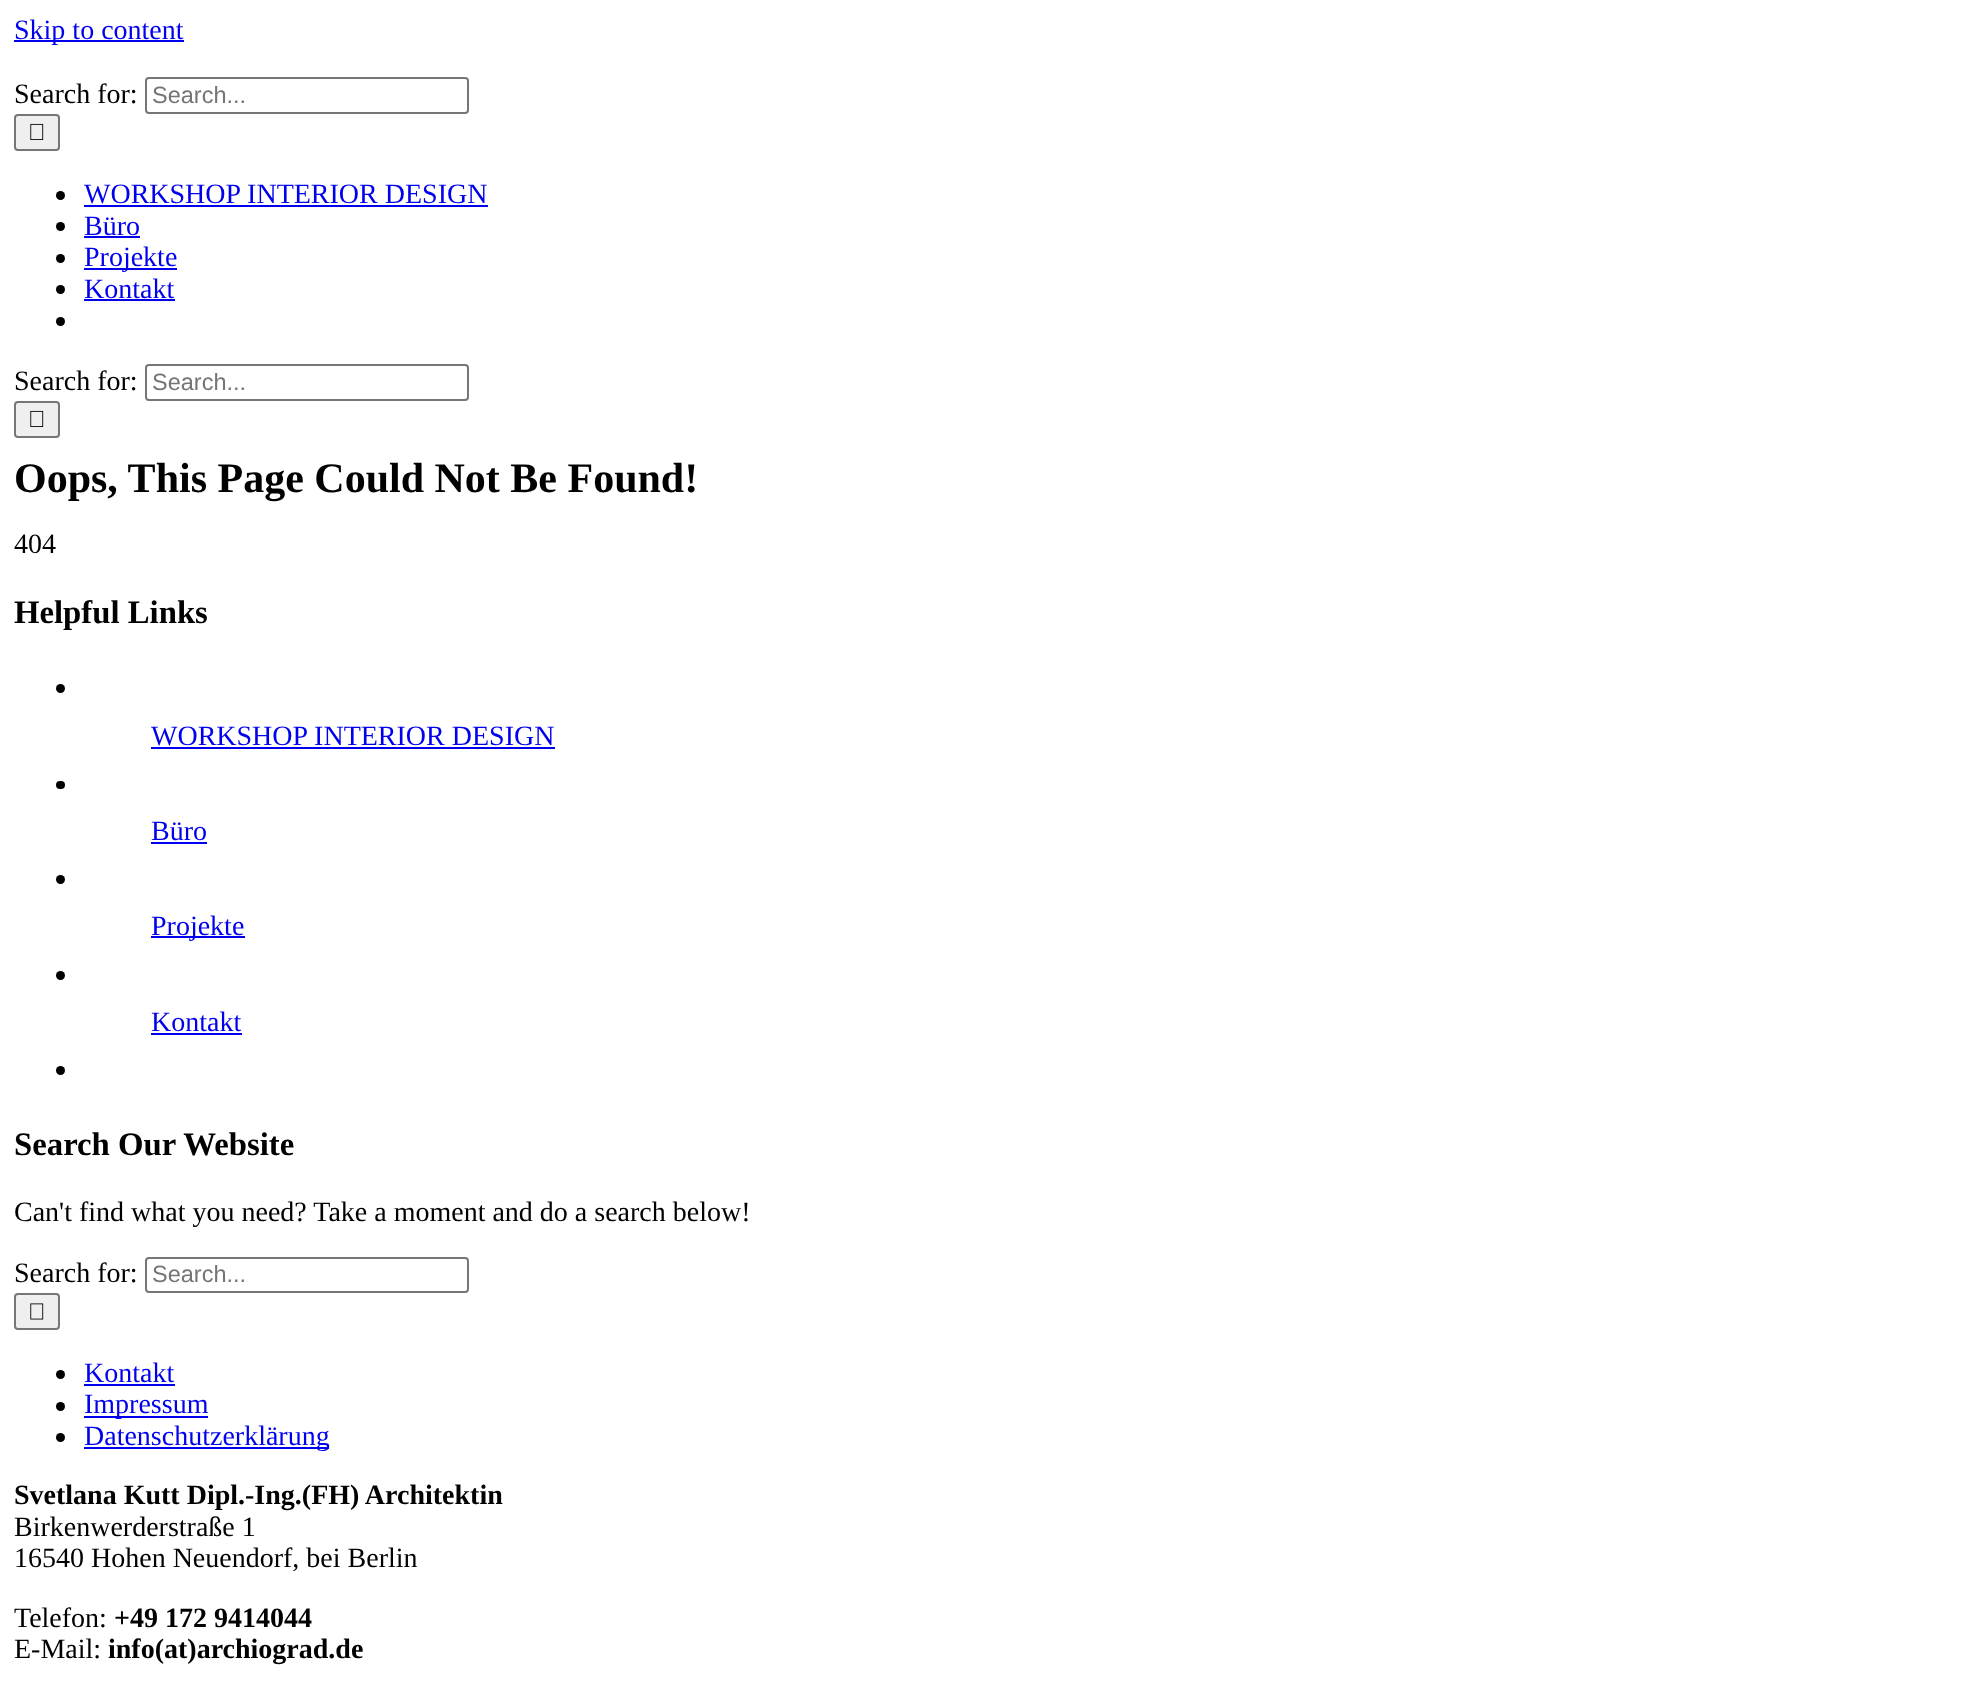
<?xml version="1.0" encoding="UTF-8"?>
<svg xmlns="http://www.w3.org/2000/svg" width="1985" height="1701">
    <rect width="100%" height="100%" fill="#FFFFFF"/>
    <rect x="14" y="40" width="170" height="2" fill="#0000EE"/>
    <text x="14" y="39" font-family="Liberation Serif" font-size="28" fill="#0000EE">Skip to content</text>
    <text x="14" y="103" font-family="Liberation Serif" font-size="28" fill="#000000">Search for:</text>
    <rect x="146" y="78" width="322" height="35" rx="3" fill="none" stroke="#767676" stroke-width="2"/>
    <text x="152" y="103" font-family="Liberation Sans" font-size="23.5" fill="#757575">Search...</text>
    <rect x="15" y="115" width="44" height="35" rx="3" fill="#EFEFEF" stroke="#767676" stroke-width="2"/>
    <image x="30" y="123" width="14" height="17" href="img_01.png"/>
    <circle cx="60.5" cy="195.5" r="4.5" fill="#000000"/>
    <text x="84" y="203" font-family="Liberation Serif" font-size="28" fill="#0000EE">WORKSHOP INTERIOR DESIGN</text>
    <rect x="84" y="205" width="404" height="2" fill="#0000EE"/>
    <circle cx="60.5" cy="226.5" r="4.5" fill="#000000"/>
    <text x="84" y="235" font-family="Liberation Serif" font-size="28" fill="#0000EE">Büro</text>
    <rect x="84" y="236" width="56" height="2" fill="#0000EE"/>
    <circle cx="60.5" cy="258.5" r="4.5" fill="#000000"/>
    <rect x="84" y="268" width="93" height="2" fill="#0000EE"/>
    <text x="84" y="266" font-family="Liberation Serif" font-size="28" fill="#0000EE">Projekte</text>
    <circle cx="60.5" cy="289.5" r="4.5" fill="#000000"/>
    <text x="84" y="298" font-family="Liberation Serif" font-size="28" fill="#0000EE">Kontakt</text>
    <rect x="84" y="299" width="91" height="2" fill="#0000EE"/>
    <circle cx="60.5" cy="321.5" r="4.5" fill="#000000"/>
    <text x="14" y="390" font-family="Liberation Serif" font-size="28" fill="#000000">Search for:</text>
    <rect x="146" y="365" width="322" height="35" rx="3" fill="none" stroke="#767676" stroke-width="2"/>
    <text x="152" y="390" font-family="Liberation Sans" font-size="23.5" fill="#757575">Search...</text>
    <rect x="15" y="402" width="44" height="35" rx="3" fill="#EFEFEF" stroke="#767676" stroke-width="2"/>
    <image x="30" y="410" width="14" height="17" href="img_01.png"/>
    <text x="14" y="492" font-family="Liberation Serif" font-size="42" font-weight="700" fill="#000000">Oops, This Page Could Not Be Found!</text>
    <text x="14" y="553" font-family="Liberation Serif" font-size="28" fill="#000000">404</text>
    <text x="14" y="623" font-family="Liberation Serif" font-size="32.75" font-weight="700" fill="#000000">Helpful Links</text>
    <circle cx="60.5" cy="688.5" r="4.5" fill="#000000"/>
    <text x="151" y="745" font-family="Liberation Serif" font-size="28" fill="#0000EE">WORKSHOP INTERIOR DESIGN</text>
    <rect x="151" y="747" width="404" height="2" fill="#0000EE"/>
    <rect x="56" y="781" width="9" height="8" rx="4" fill="#000000"/>
    <text x="151" y="840" font-family="Liberation Serif" font-size="28" fill="#0000EE">Büro</text>
    <rect x="151" y="842" width="56" height="2" fill="#0000EE"/>
    <circle cx="60.5" cy="879.5" r="4.5" fill="#000000"/>
    <rect x="151" y="936" width="94" height="2" fill="#0000EE"/>
    <text x="151" y="935" font-family="Liberation Serif" font-size="28" fill="#0000EE">Projekte</text>
    <circle cx="60.5" cy="975.5" r="4.5" fill="#000000"/>
    <text x="151" y="1031" font-family="Liberation Serif" font-size="28" fill="#0000EE">Kontakt</text>
    <rect x="151" y="1033" width="91" height="2" fill="#0000EE"/>
    <circle cx="60.5" cy="1070.5" r="4.5" fill="#000000"/>
    <text x="14" y="1155" font-family="Liberation Serif" font-size="32.75" font-weight="700" fill="#000000">Search Our Website</text>
    <text x="14" y="1221" font-family="Liberation Serif" font-size="28" fill="#000000">Can't find what you need? Take a moment and do a search below!</text>
    <text x="14" y="1282" font-family="Liberation Serif" font-size="28" fill="#000000">Search for:</text>
    <rect x="146" y="1258" width="322" height="34" rx="3" fill="none" stroke="#767676" stroke-width="2"/>
    <text x="152" y="1282" font-family="Liberation Sans" font-size="23.5" fill="#757575">Search...</text>
    <rect x="15" y="1294" width="44" height="35" rx="3" fill="#EFEFEF" stroke="#767676" stroke-width="2"/>
    <image x="30" y="1303" width="14" height="17" href="img_02.png"/>
    <circle cx="60.5" cy="1374.5" r="4.5" fill="#000000"/>
    <text x="84" y="1382" font-family="Liberation Serif" font-size="28" fill="#0000EE">Kontakt</text>
    <rect x="84" y="1384" width="91" height="2" fill="#0000EE"/>
    <circle cx="60.5" cy="1406.5" r="4.5" fill="#000000"/>
    <rect x="84" y="1416" width="124" height="2" fill="#0000EE"/>
    <text x="84" y="1413" font-family="Liberation Serif" font-size="28" fill="#0000EE">Impressum</text>
    <circle cx="60.5" cy="1437.5" r="4.5" fill="#000000"/>
    <rect x="84" y="1447" width="245" height="2" fill="#0000EE"/>
    <text x="84" y="1445" font-family="Liberation Serif" font-size="28" fill="#0000EE">Datenschutzerklärung</text>
    <text x="14" y="1504" font-family="Liberation Serif" font-size="28" font-weight="700" fill="#000000">Svetlana Kutt Dipl.-Ing.(FH) Architektin</text>
    <text font-family="Liberation Serif" font-size="28" fill="#000000">
        <tspan x="14" y="1536">Birkenwerderstraße 1</tspan>
        <tspan x="14" y="1567">16540 Hohen Neuendorf, bei Berlin</tspan>
    </text>
    <text x="14" y="1627" font-family="Liberation Serif" font-size="28" fill="#000000">Telefon:</text>
    <text x="114" y="1627" font-family="Liberation Serif" font-size="28" font-weight="700" fill="#000000">+49 172 9414044</text>
    <text x="14" y="1658" font-family="Liberation Serif" font-size="28" fill="#000000">E-Mail:</text>
    <text x="108" y="1658" font-family="Liberation Serif" font-size="28" font-weight="700" fill="#000000">info(at)archiograd.de</text>
</svg>
